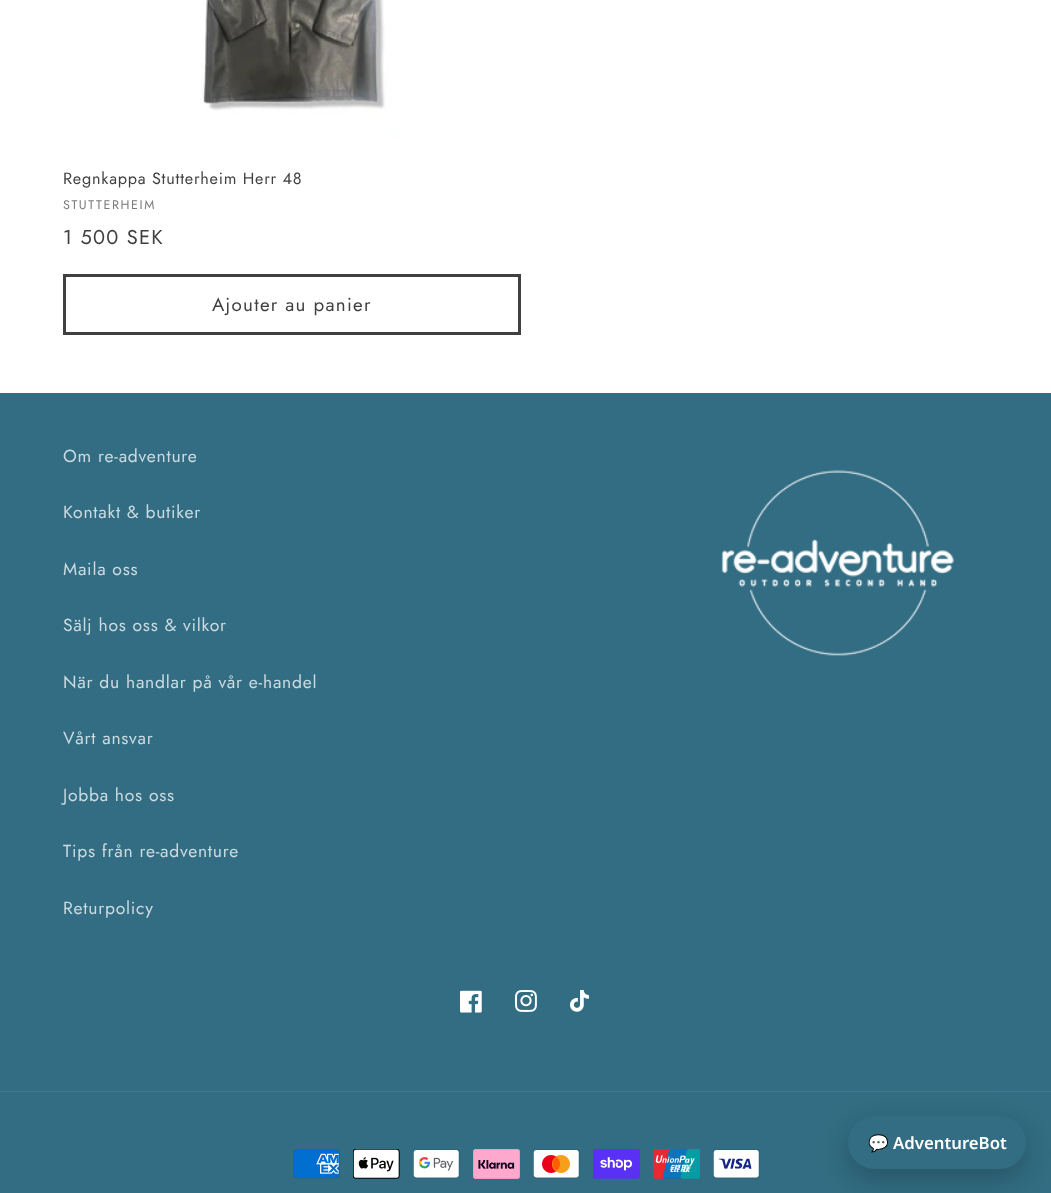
<?xml version="1.0" encoding="UTF-8"?>
<svg xmlns="http://www.w3.org/2000/svg" width="1051" height="1193">
    <defs>
        <filter id="blur1" x="-50%" y="-200%" width="200%" height="500%"><feGaussianBlur stdDeviation="15"/></filter>
    </defs>
    <rect width="100%" height="100%" fill="#FFFFFF"/>
    <image x="63" y="0" width="458" height="149" href="img_01.png"/>
    <text x="63" y="184" font-family="Jost" font-size="16.25" letter-spacing="0.75" fill="#413F3F">Regnkappa Stutterheim Herr 48</text>
    <text x="63" y="209" font-family="Jost" font-size="12.5" letter-spacing="1.6" fill="#7A7979">STUTTERHEIM</text>
    <text x="63" y="244" font-family="Jost" font-size="20" letter-spacing="1.25" fill="#413F3F">1 500 SEK</text>
    <rect x="64.5" y="275.5" width="455" height="58" fill="none" stroke="#413F3F" stroke-width="3"/>
    <text x="212" y="311" font-family="Jost" font-size="18.75" letter-spacing="1.25" fill="#413F3F">Ajouter au panier</text>
    <rect x="0" y="393" width="1051" height="800" fill="#326D83"/>
    <text x="63" y="462" font-family="Jost" font-size="17.5" letter-spacing="0.75" fill="#CCDBE0">Om re-adventure</text>
    <text x="63" y="518" font-family="Jost" font-size="17.5" letter-spacing="0.75" fill="#CCDBE0">Kontakt &amp; butiker</text>
    <text x="63" y="575" font-family="Jost" font-size="17.5" letter-spacing="0.75" fill="#CCDBE0">Maila oss</text>
    <text x="63" y="631" font-family="Jost" font-size="17.5" letter-spacing="0.75" fill="#CCDBE0">Sälj hos oss &amp; vilkor</text>
    <text x="63" y="688" font-family="Jost" font-size="17.5" letter-spacing="0.75" fill="#CCDBE0">När du handlar på vår e-handel</text>
    <text x="63" y="744" font-family="Jost" font-size="17.5" letter-spacing="0.75" fill="#CCDBE0">Vårt ansvar</text>
    <text x="63" y="801" font-family="Jost" font-size="17.5" letter-spacing="0.75" fill="#CCDBE0">Jobba hos oss</text>
    <text x="63" y="857" font-family="Jost" font-size="17.5" letter-spacing="0.75" fill="#CCDBE0">Tips från re-adventure</text>
    <text x="63" y="914" font-family="Jost" font-size="17.5" letter-spacing="0.75" fill="#CCDBE0">Returpolicy</text>
    <image x="721" y="470" width="233" height="186" href="img_02.png"/>
    <image x="460" y="990" width="22" height="23" href="img_03.png"/>
    <image x="515" y="990" width="22" height="22" href="img_04.png"/>
    <image x="570" y="990" width="19" height="22" href="img_05.png"/>
    <rect x="0" y="1091" width="1051" height="1" fill="#42798D"/>
    <image x="293" y="1149" width="47" height="30" href="img_06.png"/>
    <image x="353" y="1149" width="47" height="30" href="img_07.png"/>
    <image x="413" y="1149" width="47" height="30" href="img_08.png"/>
    <image x="473" y="1149" width="47" height="30" href="img_09.png"/>
    <image x="533" y="1149" width="47" height="30" href="img_10.png"/>
    <image x="593" y="1149" width="47" height="30" href="img_11.png"/>
    <image x="653" y="1149" width="47" height="30" href="img_12.png"/>
    <image x="713" y="1149" width="47" height="30" href="img_13.png"/>
    <rect x="848" y="1126" width="178" height="53" rx="26.5" fill="#000000" fill-opacity="0.24" filter="url(#blur1)"/>
    <rect x="848" y="1116" width="178" height="53" rx="26.5" fill="#326D83"/>
    <text x="868" y="1149" font-family="Noto Color Emoji" font-size="16.75" font-weight="700" fill="#FFFFFF">💬</text>
    <text x="893" y="1149" font-family="Noto Sans" font-size="16.75" font-weight="600" fill="#FFFFFF">AdventureBot</text>
</svg>
